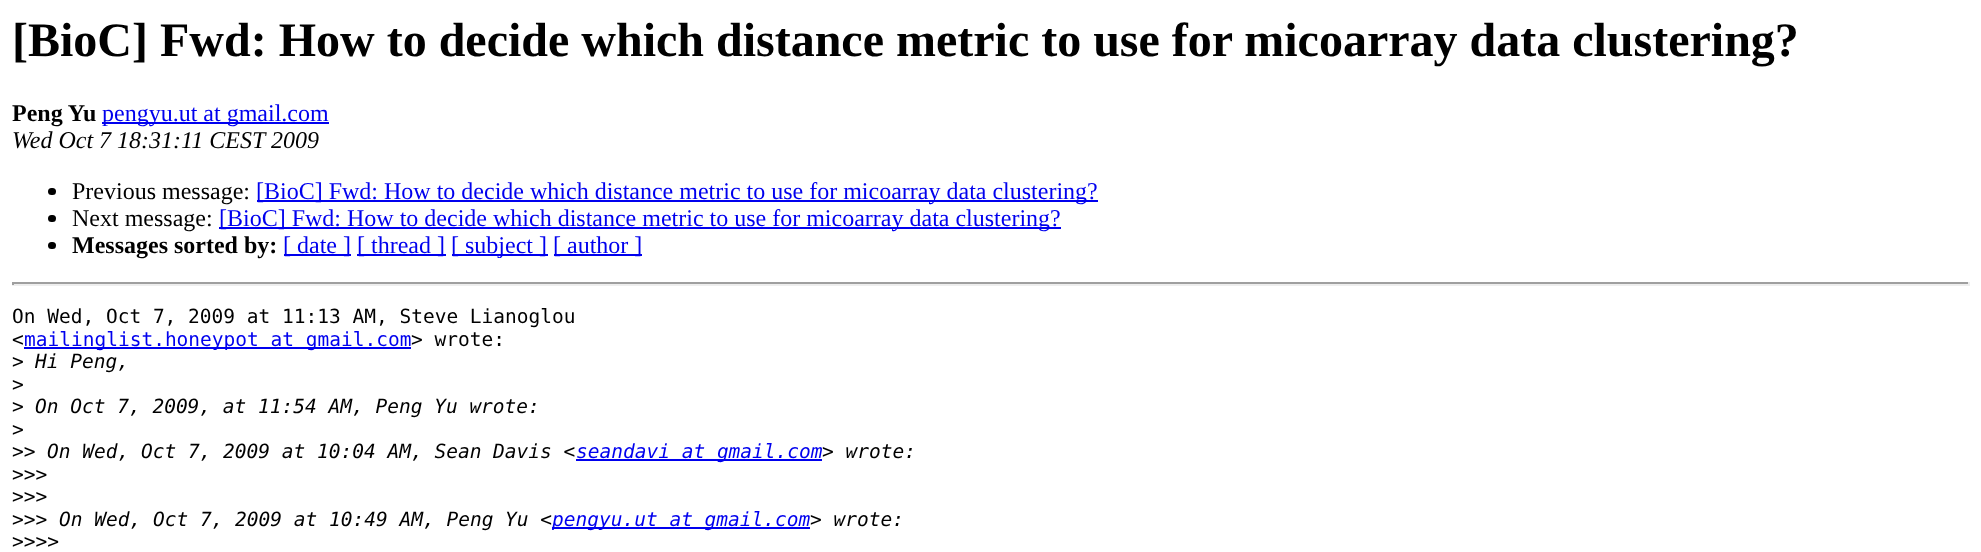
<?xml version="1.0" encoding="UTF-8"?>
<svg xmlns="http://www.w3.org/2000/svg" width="1981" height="552">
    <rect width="100%" height="100%" fill="#FFFFFF"/>
    <text x="12" y="56" font-family="Liberation Serif" font-size="48" font-weight="700" fill="#000000">[BioC] Fwd: How to decide which distance metric to use for micoarray data clustering?</text>
    <text x="12" y="121" font-family="Liberation Serif" font-size="24" font-weight="700" fill="#000000">Peng Yu</text>
    <rect x="102" y="122" width="227" height="2" fill="#0000EE"/>
    <text x="102" y="121" font-family="Liberation Serif" font-size="24" fill="#0000EE">pengyu.ut at gmail.com</text>
    <text x="12" y="148" font-family="Liberation Serif" font-size="24" font-style="italic" fill="#000000">Wed Oct 7 18:31:11 CEST 2009</text>
    <rect x="48" y="188" width="8" height="7" rx="3.5" fill="#000000"/>
    <text x="72" y="199" font-family="Liberation Serif" font-size="24" fill="#000000">Previous message:</text>
    <rect x="257" y="200" width="841" height="2" fill="#0000EE"/>
    <text x="256" y="199" font-family="Liberation Serif" font-size="24" fill="#0000EE">[BioC] Fwd: How to decide which distance metric to use for micoarray data clustering?</text>
    <rect x="48" y="215" width="8" height="7" rx="3.5" fill="#000000"/>
    <text x="72" y="226" font-family="Liberation Serif" font-size="24" fill="#000000">Next message:</text>
    <rect x="219" y="227" width="842" height="2" fill="#0000EE"/>
    <text x="219" y="226" font-family="Liberation Serif" font-size="24" fill="#0000EE">[BioC] Fwd: How to decide which distance metric to use for micoarray data clustering?</text>
    <rect x="48" y="242" width="8" height="7" rx="3.5" fill="#000000"/>
    <text x="72" y="253" font-family="Liberation Serif" font-size="24" font-weight="700" fill="#000000">Messages sorted by:</text>
    <rect x="284" y="254" width="67" height="2" fill="#0000EE"/>
    <text x="283" y="253" font-family="Liberation Serif" font-size="24" fill="#0000EE">[ date ]</text>
    <rect x="357" y="254" width="89" height="2" fill="#0000EE"/>
    <text x="357" y="253" font-family="Liberation Serif" font-size="24" fill="#0000EE">[ thread ]</text>
    <rect x="452" y="254" width="96" height="2" fill="#0000EE"/>
    <text x="451" y="253" font-family="Liberation Serif" font-size="24" fill="#0000EE">[ subject ]</text>
    <rect x="554" y="254" width="88" height="2" fill="#0000EE"/>
    <text x="553" y="253" font-family="Liberation Serif" font-size="24" fill="#0000EE">[ author ]</text>
    <rect x="12" y="282" width="1958" height="2" fill="#9F9F9F"/>
    <rect x="1968" y="282" width="2" height="3" fill="#EEEEEE"/>
    <rect x="12" y="284" width="1958" height="2" fill="#EEEEEE"/>
    <rect x="12" y="282" width="2" height="3" fill="#9F9F9F"/>
    <text font-family="DejaVu Sans Mono" font-size="19.5" fill="#000000">
        <tspan x="12" y="323">On Wed, Oct 7, 2009 at 11:13 AM, Steve Lianoglou</tspan>
        <tspan x="12" y="346">&lt;</tspan>
    </text>
    <rect x="24" y="347" width="387" height="2" fill="#0000EE"/>
    <text x="24" y="346" font-family="DejaVu Sans Mono" font-size="19.5" fill="#0000EE">mailinglist.honeypot at gmail.com</text>
    <text x="411" y="346" font-family="DejaVu Sans Mono" font-size="19.5" fill="#000000">&gt; wrote:</text>
    <text x="12" y="368" font-family="DejaVu Sans Mono" font-size="19.5" fill="#000000">&gt;</text>
    <text x="35" y="368" font-family="DejaVu Sans Mono" font-size="19.5" font-style="italic" fill="#000000">Hi Peng,</text>
    <text font-family="DejaVu Sans Mono" font-size="19.5" fill="#000000">
        <tspan x="12" y="391">&gt;</tspan>
        <tspan x="12" y="413">&gt;</tspan>
    </text>
    <text x="35" y="413" font-family="DejaVu Sans Mono" font-size="19.5" font-style="italic" fill="#000000">On Oct 7, 2009, at 11:54 AM, Peng Yu wrote:</text>
    <text font-family="DejaVu Sans Mono" font-size="19.5" fill="#000000">
        <tspan x="12" y="436">&gt;</tspan>
        <tspan x="12" y="458">&gt;&gt;</tspan>
    </text>
    <text x="47" y="458" font-family="DejaVu Sans Mono" font-size="19.5" font-style="italic" fill="#000000">On Wed, Oct 7, 2009 at 10:04 AM, Sean Davis &lt;</text>
    <rect x="576" y="459" width="246" height="2" fill="#0000EE"/>
    <text x="576" y="458" font-family="DejaVu Sans Mono" font-size="19.5" font-style="italic" fill="#0000EE">seandavi at gmail.com</text>
    <text x="822" y="458" font-family="DejaVu Sans Mono" font-size="19.5" font-style="italic" fill="#000000">&gt; wrote:</text>
    <text font-family="DejaVu Sans Mono" font-size="19.5" fill="#000000">
        <tspan x="12" y="481">&gt;&gt;&gt;</tspan>
        <tspan x="12" y="503">&gt;&gt;&gt;</tspan>
        <tspan x="12" y="526">&gt;&gt;&gt;</tspan>
    </text>
    <text x="59" y="526" font-family="DejaVu Sans Mono" font-size="19.5" font-style="italic" fill="#000000">On Wed, Oct 7, 2009 at 10:49 AM, Peng Yu &lt;</text>
    <rect x="552" y="527" width="258" height="2" fill="#0000EE"/>
    <text x="552" y="526" font-family="DejaVu Sans Mono" font-size="19.5" font-style="italic" fill="#0000EE">pengyu.ut at gmail.com</text>
    <text x="810" y="526" font-family="DejaVu Sans Mono" font-size="19.5" font-style="italic" fill="#000000">&gt; wrote:</text>
    <text x="12" y="548" font-family="DejaVu Sans Mono" font-size="19.5" fill="#000000">&gt;&gt;&gt;&gt;</text>
</svg>
